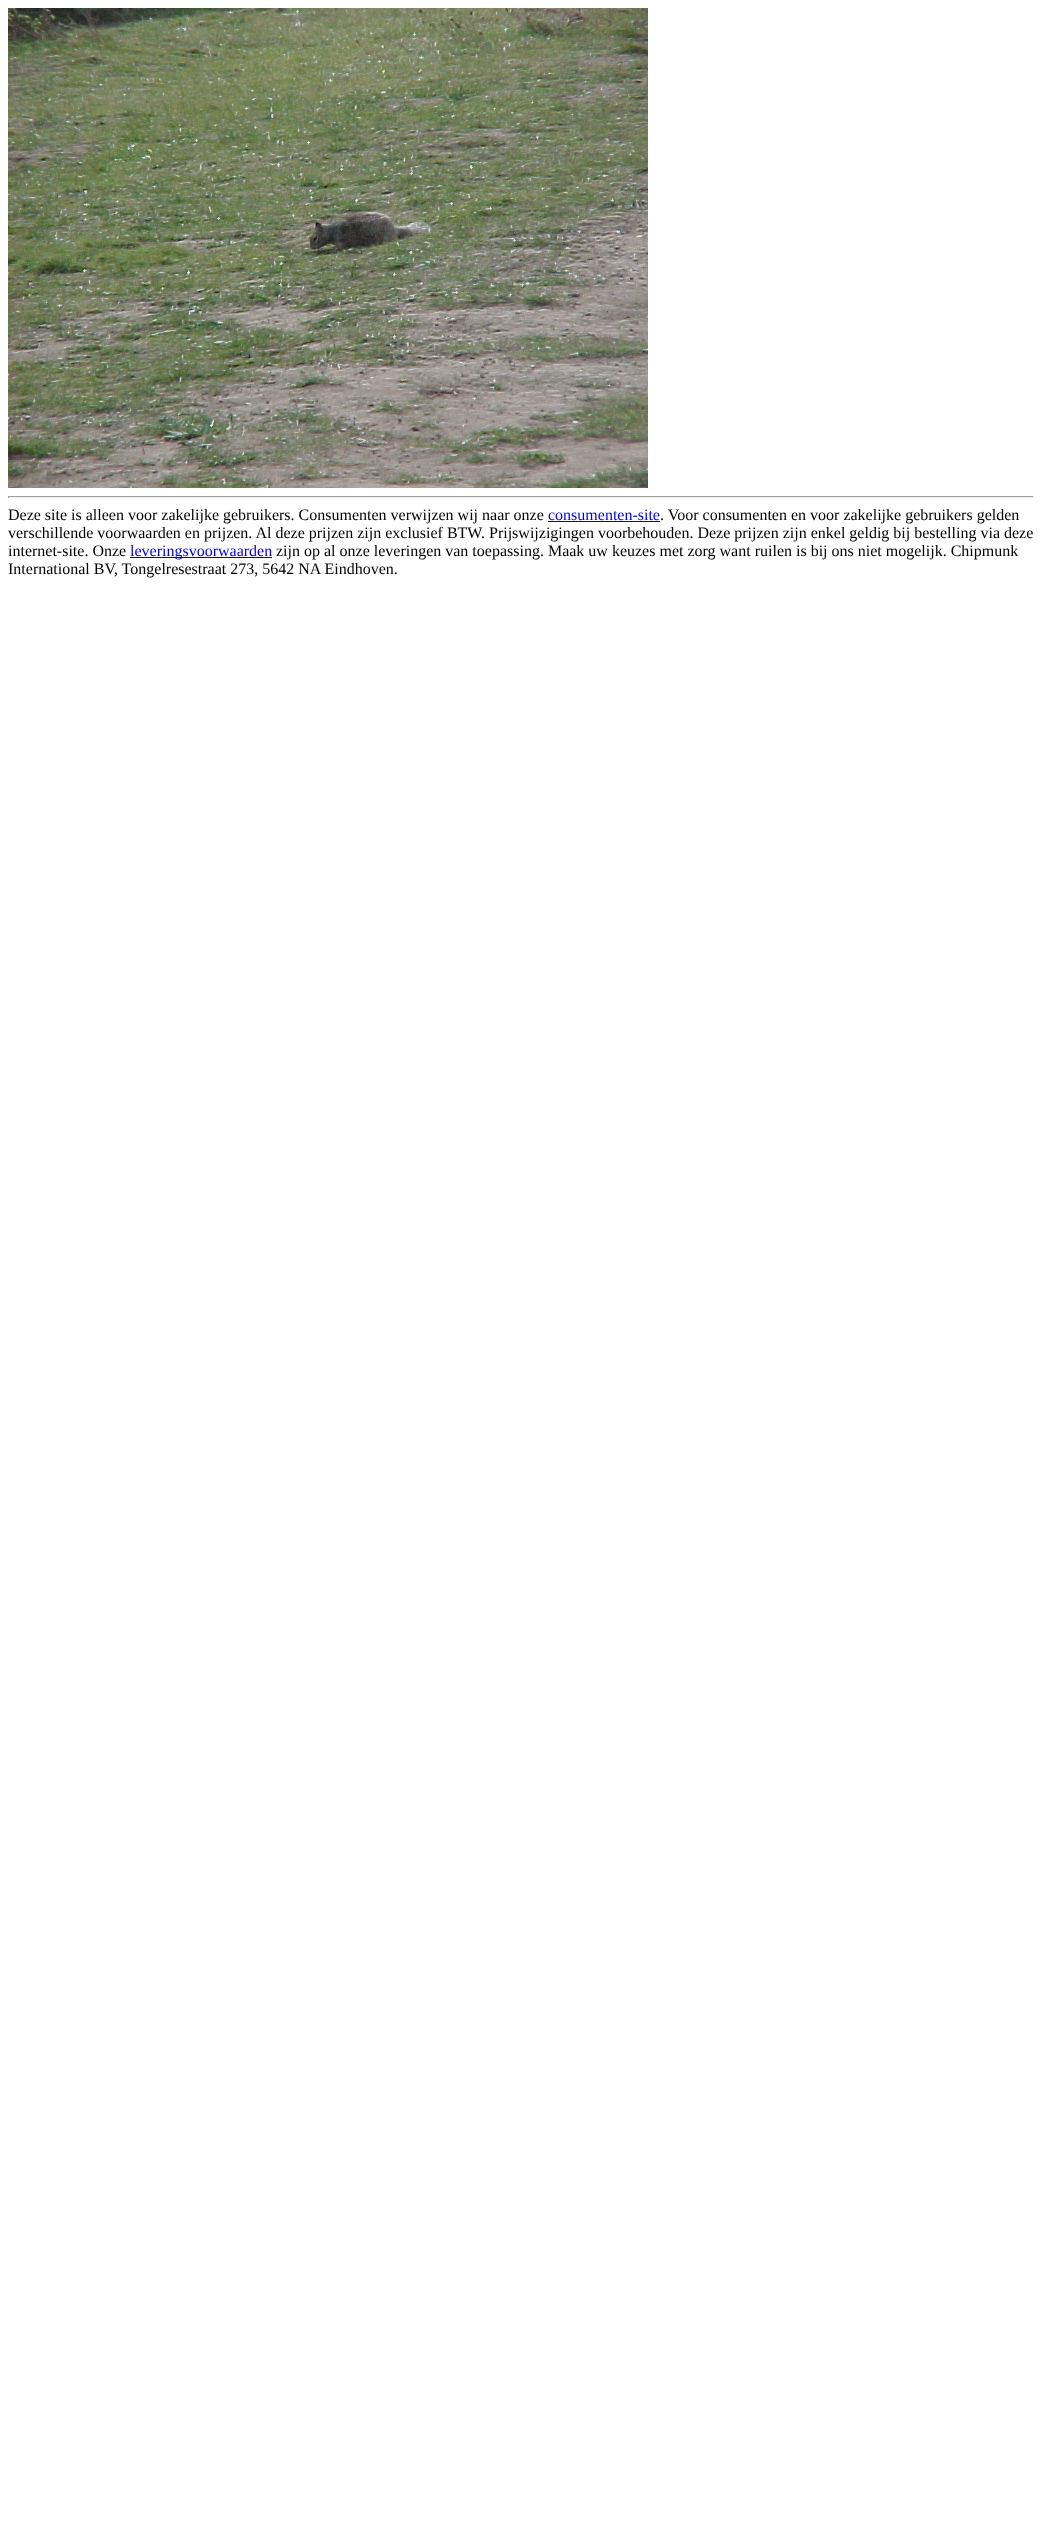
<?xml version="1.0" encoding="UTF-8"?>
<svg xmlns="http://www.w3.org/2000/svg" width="1042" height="2537">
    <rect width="100%" height="100%" fill="#FFFFFF"/>
    <image x="8" y="8" width="640" height="480" href="img_01.png"/>
    <rect x="8" y="496" width="1026" height="1" fill="#9F9F9F"/>
    <rect x="1033" y="496" width="1" height="2" fill="#EEEEEE"/>
    <rect x="8" y="497" width="1026" height="1" fill="#EEEEEE"/>
    <rect x="8" y="496" width="1" height="2" fill="#9F9F9F"/>
    <text x="8" y="520" font-family="Liberation Serif" font-size="16" fill="#000000">Deze site is alleen voor zakelijke gebruikers. Consumenten verwijzen wij naar onze</text>
    <text x="548" y="520" font-family="Liberation Serif" font-size="16" fill="#0000EE">consumenten-site</text>
    <rect x="548" y="521" width="112" height="1" fill="#0000EE"/>
    <text x="660" y="520" font-family="Liberation Serif" font-size="16" fill="#000000">. Voor consumenten en voor zakelijke gebruikers gelden</text>
    <text font-family="Liberation Serif" font-size="16" fill="#000000">
        <tspan x="8" y="538">verschillende voorwaarden en prijzen. Al deze prijzen zijn exclusief BTW. Prijswijzigingen voorbehouden. Deze prijzen zijn enkel geldig bij bestelling via deze</tspan>
        <tspan x="8" y="556">internet-site. Onze</tspan>
    </text>
    <rect x="130" y="557" width="142" height="1" fill="#0000EE"/>
    <text x="130" y="556" font-family="Liberation Serif" font-size="16" fill="#0000EE">leveringsvoorwaarden</text>
    <text x="276" y="556" font-family="Liberation Serif" font-size="16" fill="#000000">zijn op al onze leveringen van toepassing. Maak uw keuzes met zorg want ruilen is bij ons niet mogelijk. Chipmunk</text>
    <text x="8" y="574" font-family="Liberation Serif" font-size="16" fill="#000000">International BV, Tongelresestraat 273, 5642 NA Eindhoven.</text>
</svg>
